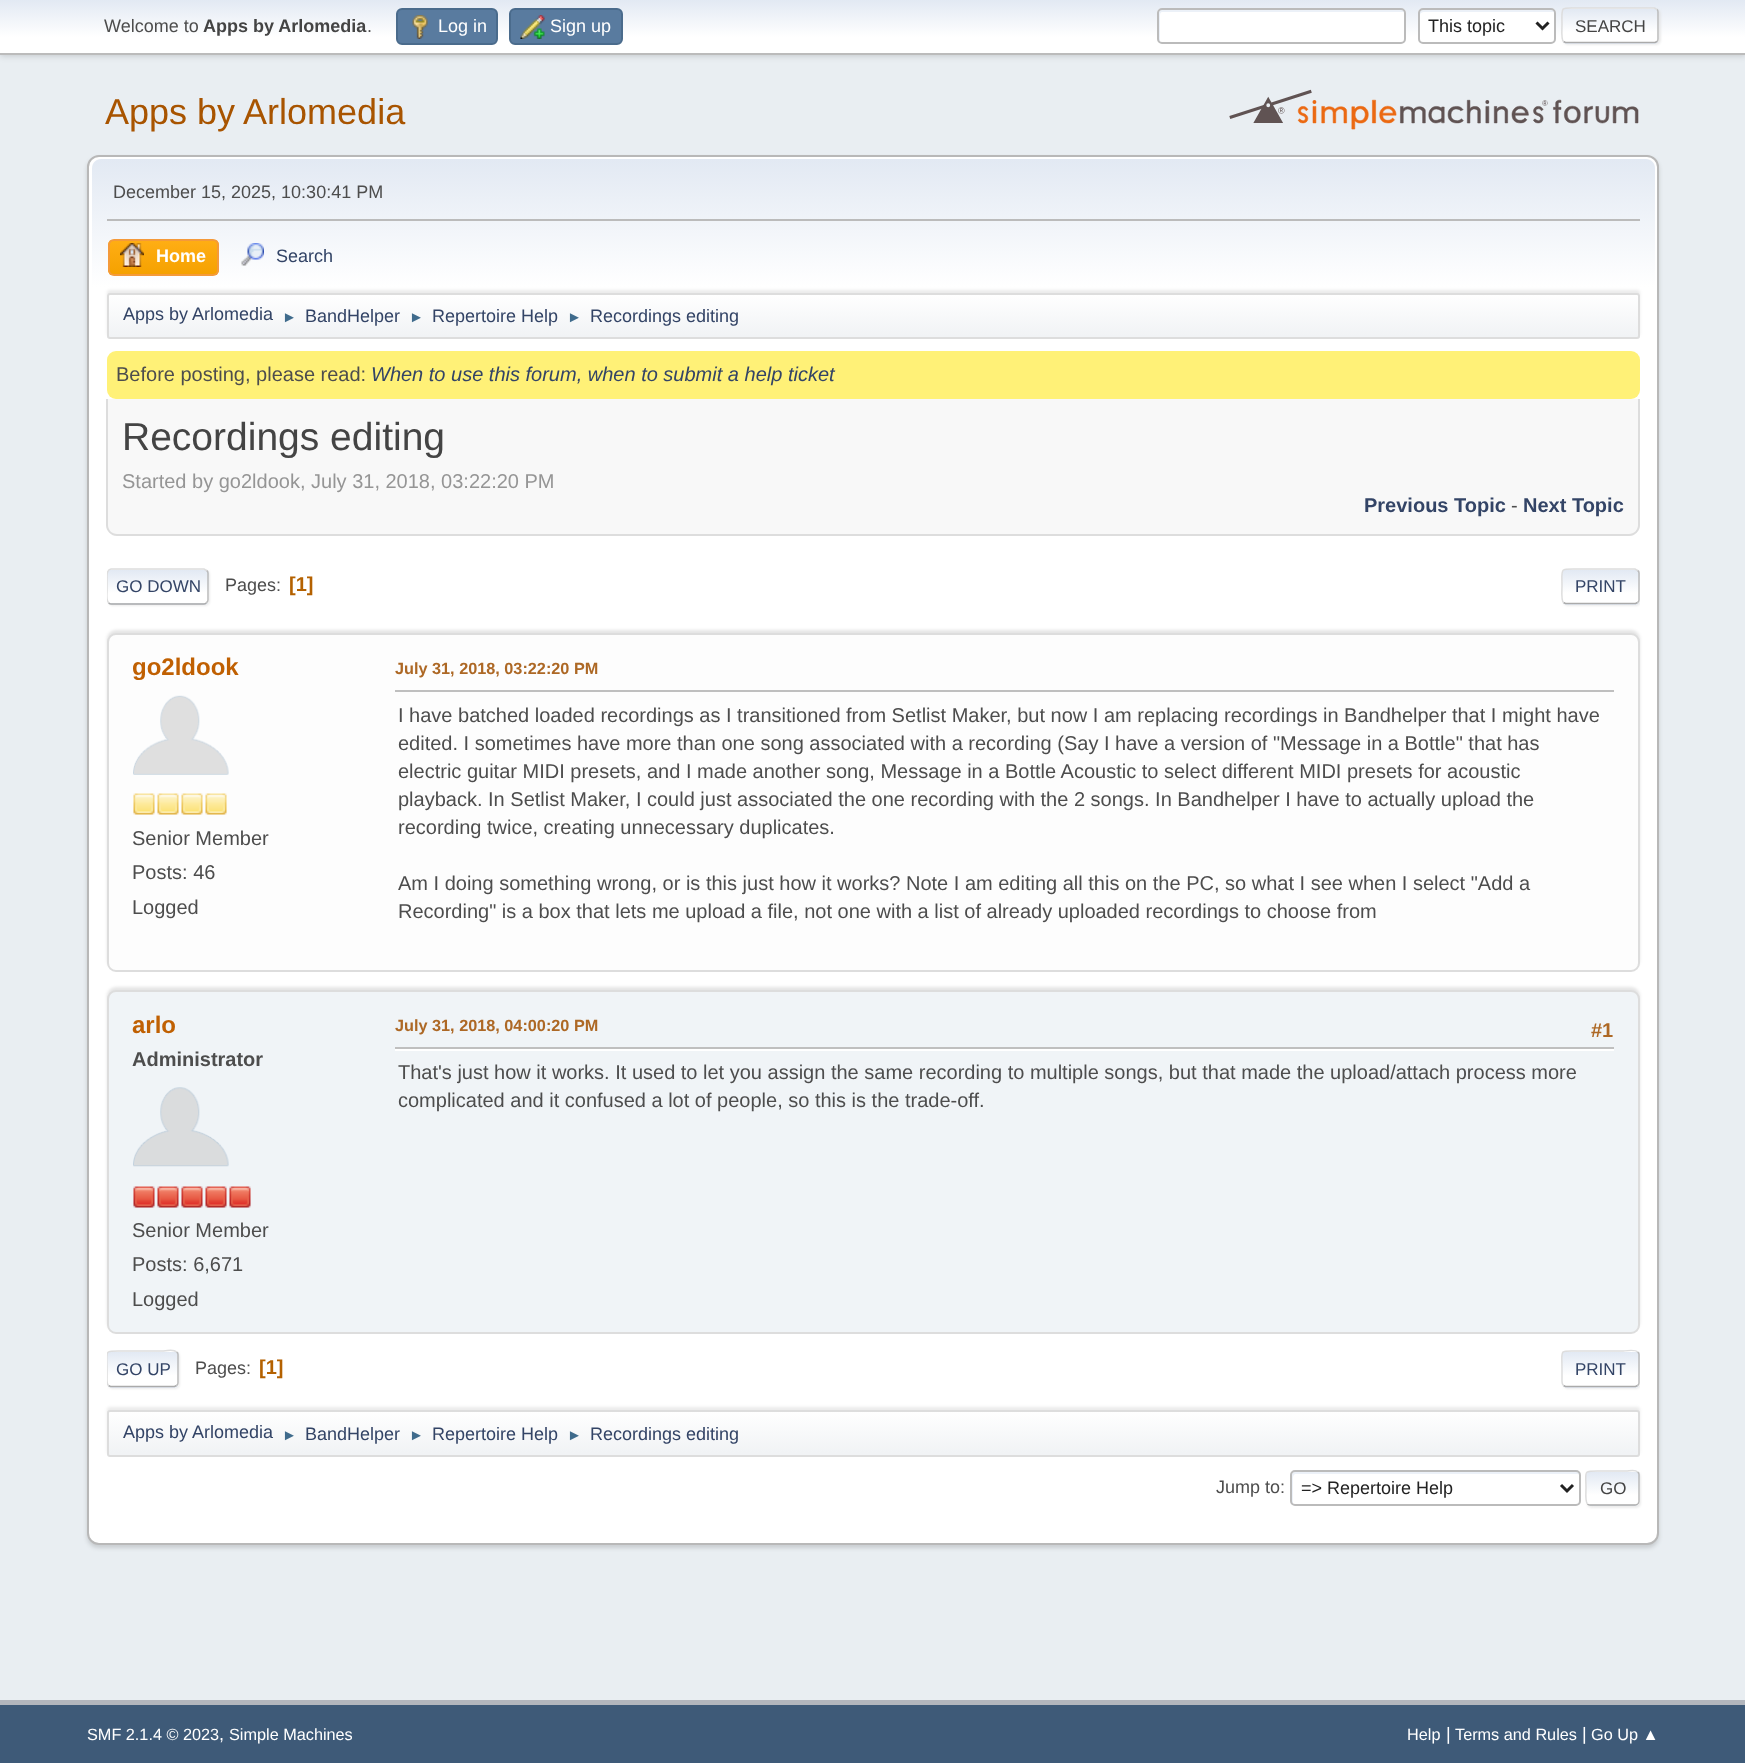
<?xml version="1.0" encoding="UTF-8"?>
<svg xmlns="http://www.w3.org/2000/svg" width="1745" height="1763">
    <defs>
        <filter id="blur1" x="-50%" y="-200%" width="200%" height="500%"><feGaussianBlur stdDeviation="3"/></filter>
        <linearGradient id="g1" gradientUnits="userSpaceOnUse" x1="873" y1="0" x2="873" y2="53"><stop offset="0" stop-color="#E2E9F3"/><stop offset="0.7" stop-color="#FFFFFF"/></linearGradient>
        <filter id="blur2" x="-50%" y="-200%" width="200%" height="500%"><feGaussianBlur stdDeviation="1"/></filter>
        <clipPath id="clip1"><rect x="1562" y="8" width="97" height="36" rx="5"/></clipPath>
        <linearGradient id="g2" gradientUnits="userSpaceOnUse" x1="1610" y1="-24" x2="1610" y2="9"><stop offset="0" stop-color="#E2E9F3"/><stop offset="0.7" stop-color="#FFFFFF"/></linearGradient>
        <linearGradient id="g3" gradientUnits="userSpaceOnUse" x1="1610" y1="9" x2="1610" y2="42"><stop offset="0" stop-color="#E2E9F3"/><stop offset="0.7" stop-color="#FFFFFF"/></linearGradient>
        <linearGradient id="g4" gradientUnits="userSpaceOnUse" x1="1610" y1="42" x2="1610" y2="75"><stop offset="0" stop-color="#E2E9F3"/><stop offset="0.7" stop-color="#FFFFFF"/></linearGradient>
        <filter id="blur3" x="-50%" y="-200%" width="200%" height="500%"><feGaussianBlur stdDeviation="2"/></filter>
        <linearGradient id="g5" gradientUnits="userSpaceOnUse" x1="873" y1="159" x2="873" y2="342"><stop offset="0" stop-color="#E2E9F3"/><stop offset="0.7" stop-color="#FFFFFF"/></linearGradient>
        <clipPath id="clip2"><rect x="108" y="239" width="111" height="37" rx="6"/></clipPath>
        <linearGradient id="g6" gradientUnits="userSpaceOnUse" x1="164" y1="240" x2="164" y2="275"><stop offset="0" stop-color="#FFAE14"/><stop offset="1" stop-color="#F5A100"/></linearGradient>
        <filter id="blur4" x="-50%" y="-200%" width="200%" height="500%"><feGaussianBlur stdDeviation="1.5"/></filter>
        <clipPath id="clip3"><rect x="107" y="293" width="1533" height="46" rx="3"/></clipPath>
        <linearGradient id="g7" gradientUnits="userSpaceOnUse" x1="873" y1="294" x2="873" y2="338"><stop offset="0" stop-color="#FFFFFF"/><stop offset="0.95" stop-color="#F1F3F5"/></linearGradient>
        <clipPath id="clip4"><rect x="107" y="569" width="102" height="36" rx="5"/></clipPath>
        <linearGradient id="g8" gradientUnits="userSpaceOnUse" x1="158" y1="570" x2="158" y2="603"><stop offset="0" stop-color="#E2E9F3"/><stop offset="0.7" stop-color="#FFFFFF"/></linearGradient>
        <linearGradient id="g9" gradientUnits="userSpaceOnUse" x1="158" y1="603" x2="158" y2="636"><stop offset="0" stop-color="#E2E9F3"/><stop offset="0.7" stop-color="#FFFFFF"/></linearGradient>
        <clipPath id="clip5"><rect x="107" y="558" width="1533" height="57"/></clipPath>
        <clipPath id="clip6"><rect x="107" y="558" width="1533" height="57"/></clipPath>
        <clipPath id="clip7"><rect x="1562" y="569" width="78" height="36" rx="5"/></clipPath>
        <linearGradient id="g10" gradientUnits="userSpaceOnUse" x1="1601" y1="570" x2="1601" y2="603"><stop offset="0" stop-color="#E2E9F3"/><stop offset="0.7" stop-color="#FFFFFF"/></linearGradient>
        <linearGradient id="g11" gradientUnits="userSpaceOnUse" x1="1601" y1="603" x2="1601" y2="636"><stop offset="0" stop-color="#E2E9F3"/><stop offset="0.7" stop-color="#FFFFFF"/></linearGradient>
        <clipPath id="clip8"><rect x="107" y="1350" width="72" height="38" rx="5"/></clipPath>
        <linearGradient id="g12" gradientUnits="userSpaceOnUse" x1="143" y1="1352" x2="143" y2="1386"><stop offset="0" stop-color="#E2E9F3"/><stop offset="0.7" stop-color="#FFFFFF"/></linearGradient>
        <linearGradient id="g13" gradientUnits="userSpaceOnUse" x1="143" y1="1386" x2="143" y2="1421"><stop offset="0" stop-color="#E2E9F3"/><stop offset="0.7" stop-color="#FFFFFF"/></linearGradient>
        <clipPath id="clip9"><rect x="107" y="1340" width="1533" height="58"/></clipPath>
        <clipPath id="clip10"><rect x="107" y="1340" width="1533" height="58"/></clipPath>
        <clipPath id="clip11"><rect x="1562" y="1350" width="78" height="38" rx="5"/></clipPath>
        <linearGradient id="g14" gradientUnits="userSpaceOnUse" x1="1601" y1="1352" x2="1601" y2="1386"><stop offset="0" stop-color="#E2E9F3"/><stop offset="0.7" stop-color="#FFFFFF"/></linearGradient>
        <linearGradient id="g15" gradientUnits="userSpaceOnUse" x1="1601" y1="1386" x2="1601" y2="1421"><stop offset="0" stop-color="#E2E9F3"/><stop offset="0.7" stop-color="#FFFFFF"/></linearGradient>
        <clipPath id="clip12"><rect x="107" y="1410" width="1533" height="47" rx="3"/></clipPath>
        <linearGradient id="g16" gradientUnits="userSpaceOnUse" x1="873" y1="1411" x2="873" y2="1455"><stop offset="0" stop-color="#FFFFFF"/><stop offset="0.95" stop-color="#F1F3F5"/></linearGradient>
        <clipPath id="clip13"><rect x="1586" y="1470" width="54" height="36" rx="5"/></clipPath>
        <linearGradient id="g17" gradientUnits="userSpaceOnUse" x1="1613" y1="1472" x2="1613" y2="1505"><stop offset="0" stop-color="#E2E9F3"/><stop offset="0.7" stop-color="#FFFFFF"/></linearGradient>
        <linearGradient id="g18" gradientUnits="userSpaceOnUse" x1="1613" y1="1505" x2="1613" y2="1538"><stop offset="0" stop-color="#E2E9F3"/><stop offset="0.7" stop-color="#FFFFFF"/></linearGradient>
    </defs>
    <rect width="100%" height="100%" fill="#E9EEF2"/>
    <rect x="0" y="2" width="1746" height="54" fill="#000000" fill-opacity="0.16" filter="url(#blur1)"/>
    <rect x="0" y="0" width="1745" height="53" fill="url(#g1)"/>
    <rect x="0" y="53" width="1745" height="2" fill="#BBBBBB"/>
    <text x="104" y="32" font-family="Liberation Sans" font-size="18" fill="#4D4D4D">Welcome to</text>
    <text x="203" y="32" font-family="Liberation Sans" font-size="18" font-weight="700" fill="#444444">Apps by Arlomedia</text>
    <text x="367" y="32" font-family="Liberation Sans" font-size="18" fill="#4D4D4D">.</text>
    <rect x="397" y="9" width="100" height="35" rx="5" fill="#597B9F" stroke="#4A6B8C" stroke-width="2"/>
    <image x="412" y="15" width="16" height="24" href="img_01.png"/>
    <text x="438" y="32" font-family="Liberation Sans" font-size="18" fill="#FFFFFF">Log in</text>
    <rect x="510" y="9" width="112" height="35" rx="5" fill="#597B9F" stroke="#4A6B8C" stroke-width="2"/>
    <image x="520" y="15" width="25" height="24" href="img_02.png"/>
    <text x="550" y="32" font-family="Liberation Sans" font-size="18" fill="#FFFFFF">Sign up</text>
    <rect x="1157" y="8" width="249" height="36" rx="5" fill="#FFFFFF"/>
    <path d="M 1162 12 H 1404 C 1404 10 1403 9 1401 9 H 1161 C 1159 9 1158 10 1158 12 V 39 C 1158 40 1159 41 1160 42 V 15 C 1160 13 1161 12 1162 12 Z" fill="#ECF1F8"/>
    <rect x="1158" y="9" width="247" height="34" rx="4" fill="none" stroke="#BBBBBB" stroke-width="2"/>
    <rect x="1418" y="8" width="138" height="36" rx="5" fill="#FFFFFF"/>
    <path d="M 1424 12 H 1554 C 1554 11 1553 10 1552 9 H 1444 C 1416 9 1419 4 1419 26 C 1419 28 1418 39 1420 41 V 15 C 1420 13 1422 12 1424 12 Z" fill="#ECF1F8"/>
    <rect x="1419" y="9" width="136" height="34" rx="4" fill="none" stroke="#BBBBBB" stroke-width="2"/>
    <path d="M 1536.5 22.5 L 1542.5 28.5 L 1548.5 22.5" fill="none" stroke="#222222" stroke-width="3"/>
    <text x="1428" y="32" font-family="Liberation Sans" font-size="18" fill="#222222">This topic</text>
    <rect x="1563" y="9" width="98" height="36" rx="5" fill="#DDDDDD" fill-opacity="0.57" filter="url(#blur2)"/>
    <g clip-path="url(#clip1)">
        <rect x="1562" y="8" width="97" height="1" fill="url(#g2)"/>
        <rect x="1562" y="9" width="97" height="33" fill="url(#g3)"/>
        <rect x="1562" y="42" width="97" height="2" fill="url(#g4)"/>
    </g>
    <path d="M 1657 9.5 C 1658 10 1658 11 1658 12 V 39 C 1658 40 1658 41 1657 41.5" fill="none" stroke="#BBBBBB" stroke-width="1.5"/>
    <path d="M 1657 41.5 L 1655 42.5 H 1565.5 L 1563.5 41.5" fill="none" stroke="#AAAAAA" stroke-width="1.5"/>
    <path d="M 1563.5 41.5 C 1561 39.5 1562 28.5 1562 25.5 C 1562 5 1559 8 1581 8 H 1654.5 L 1657 9.5" fill="none" stroke="#DDDDDD" stroke-width="1.5"/>
    <text x="1575" y="32" font-family="Liberation Sans" font-size="17" fill="#444444">SEARCH</text>
    <text x="105" y="124" font-family="Liberation Sans" font-size="36" fill="#A85400">Apps by Arlomedia</text>
    <image x="1229" y="89" width="410" height="41" href="img_03.png"/>
    <rect x="87" y="158" width="1572" height="1390" rx="12" fill="#000000" fill-opacity="0.14" filter="url(#blur3)"/>
    <rect x="88" y="156" width="1570" height="1388" rx="11" fill="#FFFFFF" stroke="#B8B8B8" stroke-width="2"/>
    <path d="M 101 159 H 1646 C 1651 159 1655 163 1655 168 V 342 H 92 V 168 C 92 163 96 159 101 159 Z" fill="url(#g5)"/>
    <rect x="107" y="219" width="1533" height="2" fill="#BBBBBB"/>
    <text x="113" y="198" font-family="Liberation Sans" font-size="18" fill="#4D4D4D">December 15, 2025, 10:30:41 PM</text>
    <g clip-path="url(#clip2)">
        <rect x="108" y="240" width="111" height="35" fill="url(#g6)"/>
    </g>
    <rect x="109" y="240" width="109" height="35" rx="5" fill="none" stroke="#F49A3A" stroke-width="2"/>
    <image x="120" y="243" width="24" height="24" href="img_04.png"/>
    <text x="156" y="262" font-family="Liberation Sans" font-size="18" font-weight="700" fill="#FFFFFF">Home</text>
    <image x="241" y="243" width="23" height="23" href="img_05.png"/>
    <text x="276" y="262" font-family="Liberation Sans" font-size="18" fill="#334466">Search</text>
    <rect x="107" y="290" width="1533" height="46" rx="3" fill="#000000" fill-opacity="0.08" filter="url(#blur4)"/>
    <g clip-path="url(#clip3)">
        <rect x="107" y="294" width="1533" height="44" fill="url(#g7)"/>
    </g>
    <rect x="108" y="294" width="1531" height="44" rx="2" fill="none" stroke="#DDDDDD" stroke-width="2"/>
    <text x="123" y="320" font-family="Liberation Sans" font-size="18" fill="#334466">Apps by Arlomedia</text>
    <text x="282" y="322" font-family="Liberation Sans" font-size="15" fill="#3F6B8C">►</text>
    <text x="305" y="322" font-family="Liberation Sans" font-size="18" fill="#334466">BandHelper</text>
    <text x="409" y="322" font-family="Liberation Sans" font-size="15" fill="#3F6B8C">►</text>
    <text x="432" y="322" font-family="Liberation Sans" font-size="18" fill="#334466">Repertoire Help</text>
    <text x="567" y="322" font-family="Liberation Sans" font-size="15" fill="#3F6B8C">►</text>
    <text x="590" y="322" font-family="Liberation Sans" font-size="18" fill="#334466">Recordings editing</text>
    <rect x="107" y="351" width="1533" height="48" rx="9" fill="#FFF177"/>
    <text x="116" y="381" font-family="Liberation Sans" font-size="20" fill="#4D4D4D">Before posting, please read:</text>
    <text x="371" y="381" font-family="Liberation Sans" font-size="20" font-style="italic" fill="#334466">When to use this forum, when to submit a help ticket</text>
    <path d="M 107 399 H 1640 V 525 C 1640 531 1635 536 1629 536 H 118 C 112 536 107 531 107 525 Z" fill="#F8F8F8"/>
    <path d="M 106 399 H 1640 V 525 C 1640 531 1635 536 1629 536 H 117 C 111 536 106 531 106 525 Z M 108 399 H 1638 V 525 C 1638 530 1634 534 1629 534 H 117 C 112 534 108 530 108 525 Z" fill="#DDDDDD" fill-rule="evenodd"/>
    <text x="122" y="450" font-family="Liberation Sans" font-size="39" fill="#444444">Recordings editing</text>
    <text x="122" y="488" font-family="Liberation Sans" font-size="20" fill="#959595">Started by go2ldook, July 31, 2018, 03:22:20 PM</text>
    <text x="1364" y="512" font-family="Liberation Sans" font-size="20" font-weight="700" fill="#334466">Previous Topic</text>
    <text x="1511" y="512" font-family="Liberation Sans" font-size="20" fill="#4D4D4D">-</text>
    <text x="1523" y="512" font-family="Liberation Sans" font-size="20" font-weight="700" fill="#334466">Next Topic</text>
    <rect x="108" y="570" width="102" height="36" rx="5" fill="#DDDDDD" fill-opacity="0.57" filter="url(#blur2)"/>
    <g clip-path="url(#clip4)">
        <rect x="107" y="570" width="102" height="33" fill="url(#g8)"/>
        <rect x="107" y="603" width="102" height="2" fill="url(#g9)"/>
    </g>
    <path d="M 206.5 570.5 C 207.5 571 208 572 208 573 V 600 C 208 601 207.5 602 206.5 602.5" fill="none" stroke="#BBBBBB" stroke-width="1.5"/>
    <path d="M 206.5 602.5 C 206 603.5 205 604 204 604 H 111 C 110 604 109 603.5 108.5 602.5" fill="none" stroke="#AAAAAA" stroke-width="1.5"/>
    <g clip-path="url(#clip5)">
        <path d="M 108.5 602.5 C 106 600 107 594 107 591 V 577.5 C 107 574.5 106.5 569.5 111 569 H 204 L 206.5 570.5" fill="none" stroke="#DDDDDD" stroke-width="1.5"/>
    </g>
    <text x="116" y="592" font-family="Liberation Sans" font-size="17" fill="#334466">GO DOWN</text>
    <text x="225" y="591" font-family="Liberation Sans" font-size="18" fill="#4D4D4D">Pages:</text>
    <text x="289" y="591" font-family="Liberation Sans" font-size="20" font-weight="700" fill="#B46100">[1]</text>
    <g clip-path="url(#clip6)">
        <rect x="1563" y="570" width="78" height="36" rx="5" fill="#DDDDDD" fill-opacity="0.57" filter="url(#blur2)"/>
    </g>
    <g clip-path="url(#clip7)">
        <rect x="1562" y="570" width="78" height="33" fill="url(#g10)"/>
        <rect x="1562" y="603" width="78" height="2" fill="url(#g11)"/>
    </g>
    <path d="M 1637.5 570.5 C 1638.5 571 1639 572 1639 573 V 600 C 1639 601 1638.5 602 1637.5 602.5" fill="none" stroke="#BBBBBB" stroke-width="1.5"/>
    <path d="M 1637.5 602.5 L 1635.5 603.5 H 1565.5 L 1563.5 602.5" fill="none" stroke="#AAAAAA" stroke-width="1.5"/>
    <path d="M 1563.5 602.5 C 1561 600.5 1562 589.5 1562 586.5 C 1562 567.5 1559 569 1577.5 569 H 1635 L 1637.5 570.5" fill="none" stroke="#DDDDDD" stroke-width="1.5"/>
    <text x="1575" y="592" font-family="Liberation Sans" font-size="17" fill="#334466">PRINT</text>
    <rect x="107" y="630" width="1533" height="339" rx="9" fill="#000000" fill-opacity="0.1" filter="url(#blur4)"/>
    <rect x="108" y="634" width="1531" height="337" rx="8" fill="#FDFDFD" stroke="#DDDDDD" stroke-width="2"/>
    <text x="132" y="675" font-family="Liberation Sans" font-size="24" font-weight="700" fill="#C06002">go2ldook</text>
    <image x="133" y="695" width="96" height="80" href="img_06.png"/>
    <image x="133" y="793" width="22" height="22" href="img_07.png"/>
    <image x="157" y="793" width="22" height="22" href="img_07.png"/>
    <image x="181" y="793" width="22" height="22" href="img_07.png"/>
    <image x="205" y="793" width="22" height="22" href="img_07.png"/>
    <text font-family="Liberation Sans" font-size="20" fill="#4D4D4D">
        <tspan x="132" y="845">Senior Member</tspan>
        <tspan x="132" y="879">Posts: 46</tspan>
        <tspan x="132" y="914">Logged</tspan>
    </text>
    <text x="395" y="674" font-family="Liberation Sans" font-size="16.25" font-weight="700" fill="#AD6825">July 31, 2018, 03:22:20 PM</text>
    <rect x="395" y="690" width="1219" height="2" fill="#BFBFBF"/>
    <text font-family="Liberation Sans" font-size="20" fill="#4D4D4D">
        <tspan x="398" y="722">I have batched loaded recordings as I transitioned from Setlist Maker, but now I am replacing recordings in Bandhelper that I might have</tspan>
        <tspan x="398" y="750">edited. I sometimes have more than one song associated with a recording (Say I have a version of "Message in a Bottle" that has</tspan>
        <tspan x="398" y="778">electric guitar MIDI presets, and I made another song, Message in a Bottle Acoustic to select different MIDI presets for acoustic</tspan>
        <tspan x="398" y="806">playback. In Setlist Maker, I could just associated the one recording with the 2 songs. In Bandhelper I have to actually upload the</tspan>
        <tspan x="398" y="834">recording twice, creating unnecessary duplicates.</tspan>
    </text>
    <text font-family="Liberation Sans" font-size="20" fill="#4D4D4D">
        <tspan x="398" y="890">Am I doing something wrong, or is this just how it works? Note I am editing all this on the PC, so what I see when I select "Add a</tspan>
        <tspan x="398" y="918">Recording" is a box that lets me upload a file, not one with a list of already uploaded recordings to choose from</tspan>
    </text>
    <rect x="107" y="987" width="1533" height="344" rx="9" fill="#000000" fill-opacity="0.1" filter="url(#blur4)"/>
    <rect x="108" y="991" width="1531" height="342" rx="8" fill="#F0F4F7" stroke="#DDDDDD" stroke-width="2"/>
    <text x="132" y="1033" font-family="Liberation Sans" font-size="24" font-weight="700" fill="#C06002">arlo</text>
    <text x="132" y="1066" font-family="Liberation Sans" font-size="20" font-weight="700" fill="#4D4D4D">Administrator</text>
    <image x="133" y="1087" width="96" height="80" href="img_08.png"/>
    <image x="133" y="1186" width="22" height="22" href="img_09.png"/>
    <image x="157" y="1186" width="22" height="22" href="img_09.png"/>
    <image x="181" y="1186" width="22" height="22" href="img_09.png"/>
    <image x="205" y="1186" width="22" height="22" href="img_09.png"/>
    <image x="229" y="1186" width="22" height="22" href="img_09.png"/>
    <text font-family="Liberation Sans" font-size="20" fill="#4D4D4D">
        <tspan x="132" y="1237">Senior Member</tspan>
        <tspan x="132" y="1271">Posts: 6,671</tspan>
        <tspan x="132" y="1306">Logged</tspan>
    </text>
    <text x="395" y="1031" font-family="Liberation Sans" font-size="16.25" font-weight="700" fill="#AD6825">July 31, 2018, 04:00:20 PM</text>
    <text x="1591" y="1037" font-family="Liberation Sans" font-size="20" font-weight="700" fill="#AD6825">#1</text>
    <rect x="395" y="1049" width="1219" height="2" fill="#FFFFFF"/>
    <rect x="395" y="1047" width="1219" height="2" fill="#BFBFBF"/>
    <text font-family="Liberation Sans" font-size="20" fill="#4D4D4D">
        <tspan x="398" y="1079">That's just how it works. It used to let you assign the same recording to multiple songs, but that made the upload/attach process more</tspan>
        <tspan x="398" y="1107">complicated and it confused a lot of people, so this is the trade-off.</tspan>
    </text>
    <rect x="108" y="1352" width="72" height="37" rx="5" fill="#DDDDDD" fill-opacity="0.57" filter="url(#blur2)"/>
    <rect x="107" y="1350" width="72" height="38" rx="5" fill="#FFFFFF"/>
    <g clip-path="url(#clip8)">
        <rect x="107" y="1352" width="72" height="34" fill="url(#g12)"/>
        <rect x="107" y="1386" width="72" height="2" fill="url(#g13)"/>
    </g>
    <path d="M 176.5 1352 C 177.5 1352.5 178 1353.5 178 1354.5 V 1383 C 178 1384 177.5 1385 176.5 1385.5" fill="none" stroke="#BBBBBB" stroke-width="1.5"/>
    <path d="M 176.5 1385.5 L 174.5 1386.5 H 110.5 L 108.5 1385.5" fill="none" stroke="#AAAAAA" stroke-width="1.5"/>
    <g clip-path="url(#clip9)">
        <path d="M 108.5 1385.5 C 106.5 1384 107 1380.5 107 1378 V 1369 C 107 1350 103.5 1351 121.5 1351 H 163.5 C 163.5 1351 174 1349 176.5 1352" fill="none" stroke="#DDDDDD" stroke-width="1.5"/>
    </g>
    <text x="116" y="1375" font-family="Liberation Sans" font-size="17" fill="#334466">GO UP</text>
    <text x="195" y="1374" font-family="Liberation Sans" font-size="18" fill="#4D4D4D">Pages:</text>
    <text x="259" y="1374" font-family="Liberation Sans" font-size="20" font-weight="700" fill="#B46100">[1]</text>
    <g clip-path="url(#clip10)">
        <rect x="1563" y="1352" width="78" height="37" rx="5" fill="#DDDDDD" fill-opacity="0.57" filter="url(#blur2)"/>
    </g>
    <rect x="1562" y="1350" width="78" height="38" rx="5" fill="#FFFFFF"/>
    <g clip-path="url(#clip11)">
        <rect x="1562" y="1352" width="78" height="34" fill="url(#g14)"/>
        <rect x="1562" y="1386" width="78" height="2" fill="url(#g15)"/>
    </g>
    <path d="M 1637.5 1352 C 1638.5 1352.5 1639 1353.5 1639 1354.5 V 1383 C 1639 1384 1638.5 1385 1637.5 1385.5" fill="none" stroke="#BBBBBB" stroke-width="1.5"/>
    <path d="M 1637.5 1385.5 L 1635.5 1386.5 H 1565.5 L 1563.5 1385.5" fill="none" stroke="#AAAAAA" stroke-width="1.5"/>
    <path d="M 1563.5 1385.5 C 1561.5 1384 1562 1380.5 1562 1378 V 1369 C 1562 1349 1558.5 1351 1577.5 1351 H 1623.5 C 1624.5 1351 1635 1349 1637.5 1352" fill="none" stroke="#DDDDDD" stroke-width="1.5"/>
    <text x="1575" y="1375" font-family="Liberation Sans" font-size="17" fill="#334466">PRINT</text>
    <rect x="107" y="1407" width="1533" height="47" rx="3" fill="#000000" fill-opacity="0.08" filter="url(#blur4)"/>
    <g clip-path="url(#clip12)">
        <rect x="107" y="1412" width="1533" height="43" fill="url(#g16)"/>
    </g>
    <rect x="108" y="1411" width="1531" height="45" rx="2" fill="none" stroke="#DDDDDD" stroke-width="2"/>
    <text x="123" y="1438" font-family="Liberation Sans" font-size="18" fill="#334466">Apps by Arlomedia</text>
    <text x="282" y="1440" font-family="Liberation Sans" font-size="15" fill="#3F6B8C">►</text>
    <text x="305" y="1440" font-family="Liberation Sans" font-size="18" fill="#334466">BandHelper</text>
    <text x="409" y="1440" font-family="Liberation Sans" font-size="15" fill="#3F6B8C">►</text>
    <text x="432" y="1440" font-family="Liberation Sans" font-size="18" fill="#334466">Repertoire Help</text>
    <text x="567" y="1440" font-family="Liberation Sans" font-size="15" fill="#3F6B8C">►</text>
    <text x="590" y="1440" font-family="Liberation Sans" font-size="18" fill="#334466">Recordings editing</text>
    <text x="1216" y="1493" font-family="Liberation Sans" font-size="18" fill="#4D4D4D">Jump to:</text>
    <path d="M 1296 1474 H 1578 L 1580 1475 C 1580 1473 1579 1472 1577 1472 H 1295 C 1293 1472 1292 1473 1292 1475 V 1502 C 1292 1503 1292 1504 1293 1504 V 1482 C 1293 1480 1292 1474 1296 1474 Z" fill="#ECF1F8"/>
    <rect x="1291" y="1471" width="289" height="34" rx="4" fill="none" stroke="#BBBBBB" stroke-width="2"/>
    <path d="M 1561 1485 L 1567 1491 L 1573 1485" fill="none" stroke="#222222" stroke-width="3"/>
    <text x="1301" y="1494" font-family="Liberation Sans" font-size="18" fill="#222222">=&gt; Repertoire Help</text>
    <rect x="1587" y="1472" width="54" height="36" rx="5" fill="#DDDDDD" fill-opacity="0.57" filter="url(#blur2)"/>
    <rect x="1586" y="1470" width="54" height="36" rx="5" fill="#FFFFFF"/>
    <g clip-path="url(#clip13)">
        <rect x="1586" y="1472" width="54" height="33" fill="url(#g17)"/>
        <rect x="1586" y="1505" width="54" height="1" fill="url(#g18)"/>
    </g>
    <path d="M 1637.5 1472 C 1638.5 1472.5 1639 1473.5 1639 1474.5 V 1501.5 C 1639 1502.5 1638.5 1503.5 1637.5 1504" fill="none" stroke="#BBBBBB" stroke-width="1.5"/>
    <path d="M 1637.5 1504 C 1637 1505 1636 1505 1635 1505 H 1590 C 1589 1505 1588 1505 1587.5 1504" fill="none" stroke="#AAAAAA" stroke-width="1.5"/>
    <path d="M 1587.5 1504 C 1585 1502 1586 1491 1586 1488 C 1586 1471.5 1582.5 1471 1597.5 1471 H 1627.5 C 1629 1471 1635.5 1469.5 1637.5 1472" fill="none" stroke="#DDDDDD" stroke-width="1.5"/>
    <text x="1600" y="1494" font-family="Liberation Sans" font-size="17" fill="#444444">GO</text>
    <rect x="0" y="1705" width="1745" height="58" fill="#3E5A78"/>
    <rect x="0" y="1700" width="1745" height="5" fill="#B2B6BD"/>
    <text x="87" y="1740" font-family="Liberation Sans" font-size="16.25" fill="#FFFFFF">SMF 2.1.4 © 2023</text>
    <text x="219" y="1740" font-family="Liberation Sans" font-size="18" fill="#FFFFFF">,</text>
    <text x="229" y="1740" font-family="Liberation Sans" font-size="16.25" fill="#FFFFFF">Simple Machines</text>
    <text x="1407" y="1740" font-family="Liberation Sans" font-size="16.25" fill="#FFFFFF">Help</text>
    <text x="1446" y="1740" font-family="Liberation Sans" font-size="18" fill="#FFFFFF">|</text>
    <text x="1455" y="1740" font-family="Liberation Sans" font-size="16.25" fill="#FFFFFF">Terms and Rules</text>
    <text x="1582" y="1740" font-family="Liberation Sans" font-size="18" fill="#FFFFFF">|</text>
    <text x="1591" y="1740" font-family="Liberation Sans" font-size="16.25" fill="#FFFFFF">Go Up ▲</text>
</svg>
